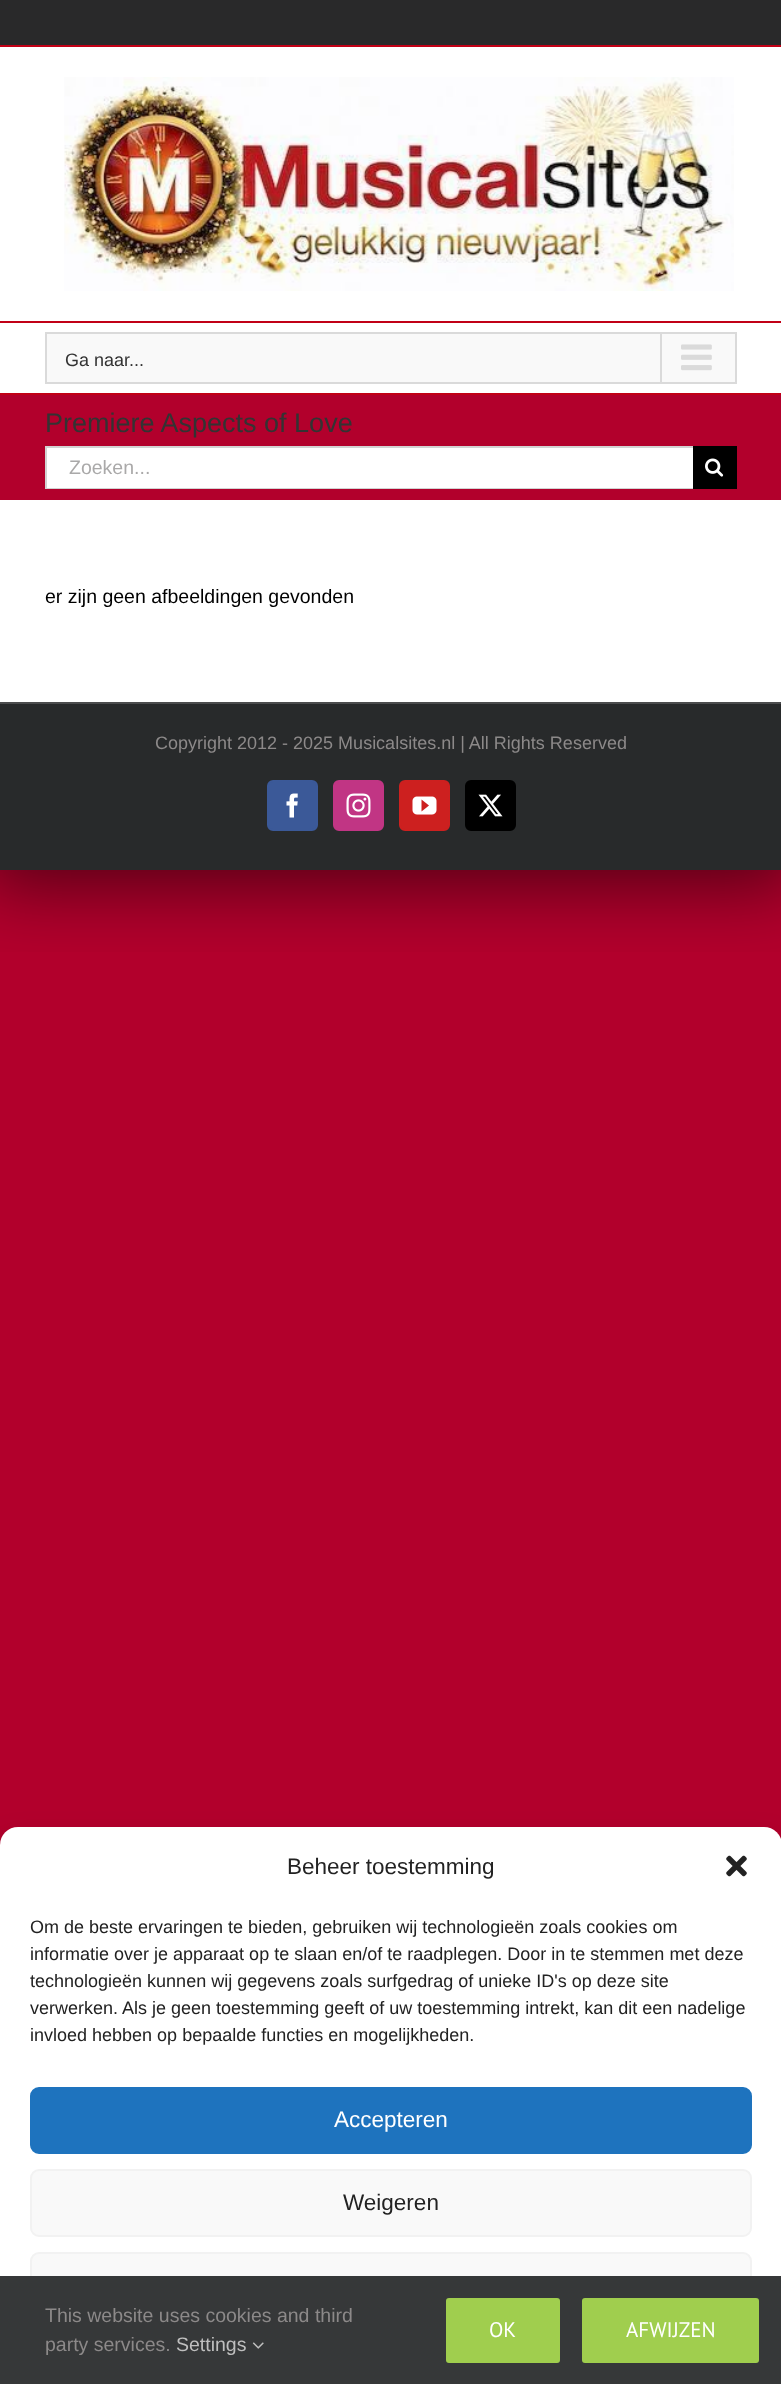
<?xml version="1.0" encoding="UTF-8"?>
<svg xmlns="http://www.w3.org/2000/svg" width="781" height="2384">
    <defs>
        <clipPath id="clip1"><rect x="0" y="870" width="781" height="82"/></clipPath>
        <filter id="blur1" x="-50%" y="-200%" width="200%" height="500%"><feGaussianBlur stdDeviation="37.5"/></filter>
        <filter id="blur2" x="-50%" y="-200%" width="200%" height="500%"><feGaussianBlur stdDeviation="4.5"/></filter>
        <filter id="blur3" x="-50%" y="-200%" width="200%" height="500%"><feGaussianBlur stdDeviation="15"/></filter>
    </defs>
    <rect width="100%" height="100%" fill="#B2002C"/>
    <g clip-path="url(#clip1)">
        <rect x="-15" y="-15" width="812" height="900" fill="#000000" fill-opacity="0.55" filter="url(#blur1)"/>
    </g>
    <rect x="0" y="0" width="781" height="45" fill="#29292A"/>
    <rect x="0" y="45" width="781" height="2" fill="#C10016"/>
    <rect x="0" y="47" width="781" height="274" fill="#FFFFFF"/>
    <rect x="0" y="321" width="781" height="2" fill="#C10016"/>
    <image x="64" y="77" width="670" height="214" href="img_01.png"/>
    <rect x="0" y="323" width="781" height="70" fill="#FFFFFF"/>
    <rect x="0" y="393" width="781" height="2" fill="#C10016"/>
    <rect x="46" y="333" width="690" height="50" fill="#F9F9F9" stroke="#DADADA" stroke-width="2"/>
    <text x="65" y="366" font-family="Liberation Sans" font-size="18" fill="#333333">Ga naar...</text>
    <rect x="660" y="333" width="2" height="50" fill="#DADADA"/>
    <image x="681" y="344" width="31" height="27" href="img_02.png"/>
    <text x="45" y="432" font-family="Liberation Sans" font-size="27" fill="#333333">Premiere Aspects of Love</text>
    <rect x="47" y="448" width="646" height="40" fill="#FFFFFF"/>
    <rect x="45" y="446" width="648" height="2" fill="#D2D2D2"/>
    <rect x="45" y="488" width="648" height="1" fill="#D2D2D2"/>
    <rect x="45" y="446" width="2" height="43" fill="#D2D2D2"/>
    <text x="69" y="474" font-family="Liberation Sans" font-size="19.5" fill="#AAA9A9">Zoeken...</text>
    <rect x="693" y="446" width="44" height="43" fill="#000000"/>
    <image x="705" y="458" width="19" height="19" href="img_03.png"/>
    <rect x="0" y="500" width="781" height="202" fill="#FFFFFF"/>
    <text x="45" y="603" font-family="Liberation Sans" font-size="19.5" fill="#000000">er zijn geen afbeeldingen gevonden</text>
    <rect x="0" y="704" width="781" height="166" fill="#282A2B"/>
    <rect x="0" y="702" width="781" height="2" fill="#4B4C4D"/>
    <text x="155" y="749" font-family="Liberation Sans" font-size="18" fill="#8C8989">Copyright 2012 - 2025 Musicalsites.nl | All Rights Reserved</text>
    <rect x="268" y="781" width="49" height="49" rx="5" fill="#3B5998" stroke="#3B5998" stroke-width="2"/>
    <image x="286" y="793" width="12" height="25" href="img_04.png"/>
    <rect x="334" y="781" width="49" height="49" rx="5" fill="#C13584" stroke="#C13584" stroke-width="2"/>
    <image x="346" y="793" width="25" height="25" href="img_05.png"/>
    <rect x="400" y="781" width="49" height="49" rx="5" fill="#CD201F" stroke="#CD201F" stroke-width="2"/>
    <image x="412" y="796" width="25" height="19" href="img_06.png"/>
    <rect x="466" y="781" width="49" height="49" rx="5" fill="#000000" stroke="#000000" stroke-width="2"/>
    <image x="478" y="794" width="25" height="23" href="img_07.png"/>
    <rect x="0" y="1836" width="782" height="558" rx="18" fill="#000000" fill-opacity="0.23" filter="url(#blur2)"/>
    <rect x="0" y="1842" width="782" height="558" rx="18" fill="#000000" fill-opacity="0.19" filter="url(#blur3)"/>
    <rect x="0" y="1827" width="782" height="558" rx="18" fill="#FFFFFF"/>
    <text x="287" y="1874" font-family="Liberation Sans" font-size="22.5" fill="#222222">Beheer toestemming</text>
    <image x="726" y="1855" width="21" height="22" href="img_08.png"/>
    <text font-family="Liberation Sans" font-size="18" fill="#222222">
        <tspan x="30" y="1933">Om de beste ervaringen te bieden, gebruiken wij technologieën zoals cookies om</tspan>
        <tspan x="30" y="1960">informatie over je apparaat op te slaan en/of te raadplegen. Door in te stemmen met deze</tspan>
        <tspan x="30" y="1987">technologieën kunnen wij gegevens zoals surfgedrag of unieke ID's op deze site</tspan>
        <tspan x="30" y="2014">verwerken. Als je geen toestemming geeft of uw toestemming intrekt, kan dit een nadelige</tspan>
        <tspan x="30" y="2041">invloed hebben op bepaalde functies en mogelijkheden.</tspan>
    </text>
    <rect x="31" y="2088" width="720" height="65" rx="8" fill="#1E73BE" stroke="#1E73BE" stroke-width="2"/>
    <text x="334" y="2127" font-family="Liberation Sans" font-size="22.5" fill="#FFFFFF">Accepteren</text>
    <rect x="31" y="2170" width="720" height="66" rx="8" fill="#F9F9F9" stroke="#F2F2F2" stroke-width="2"/>
    <text x="343" y="2210" font-family="Liberation Sans" font-size="22.5" fill="#222222">Weigeren</text>
    <rect x="31" y="2253" width="720" height="65" rx="8" fill="#F9F9F9" stroke="#F2F2F2" stroke-width="2"/>
    <rect x="0" y="2276" width="781" height="108" fill="#363839"/>
    <text font-family="Liberation Sans" font-size="19.5" fill="#8C8989">
        <tspan x="45" y="2322">This website uses cookies and third</tspan>
        <tspan x="45" y="2351">party services.</tspan>
    </text>
    <text x="176" y="2351" font-family="Liberation Sans" font-size="19.5" fill="#BFBFBF">Settings</text>
    <image x="252" y="2342" width="12" height="7" href="img_09.png"/>
    <rect x="446" y="2298" width="114" height="65" rx="3" fill="#A0CE4E"/>
    <text x="489" y="2337" font-family="PT Sans" font-size="21" fill="#FFFFFF">OK</text>
    <rect x="582" y="2298" width="177" height="65" rx="3" fill="#A0CE4E"/>
    <text x="626" y="2337" font-family="PT Sans" font-size="21" fill="#FFFFFF">AFWIJZEN</text>
</svg>
